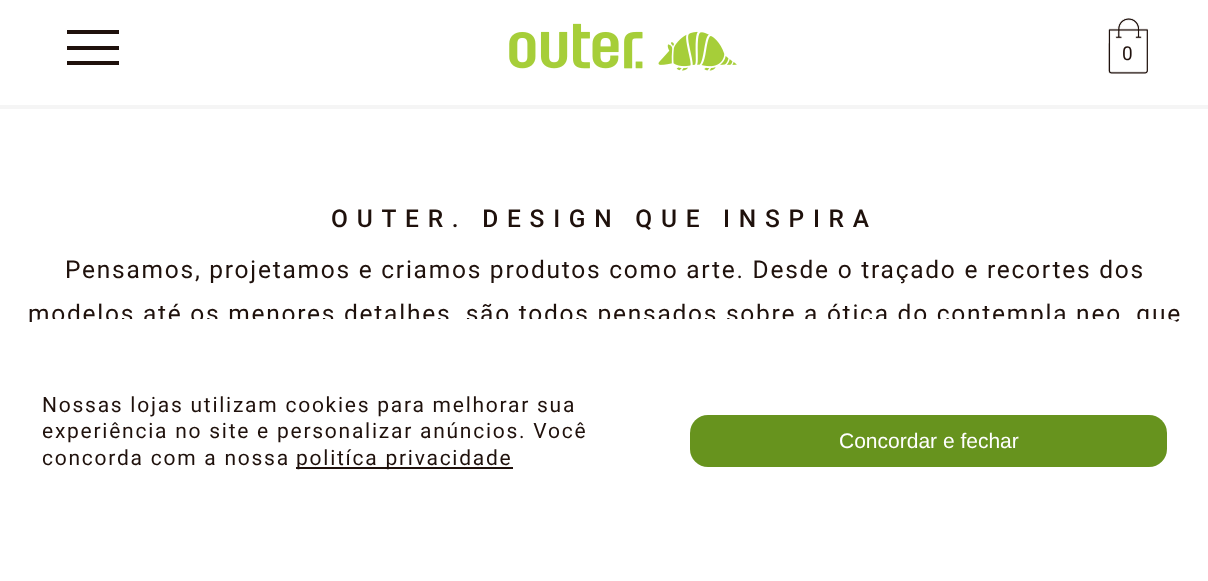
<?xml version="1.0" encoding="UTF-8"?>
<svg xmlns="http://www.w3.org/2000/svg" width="1208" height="581">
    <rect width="100%" height="100%" fill="#FFFFFF"/>
    <rect x="0" y="105" width="1208" height="4" fill="#F5F5F5"/>
    <rect x="67" y="30" width="52" height="4" fill="#1F110C"/>
    <rect x="67" y="46" width="52" height="4" fill="#1F110C"/>
    <rect x="67" y="61" width="52" height="4" fill="#1F110C"/>
    <image x="509" y="23" width="228" height="48" href="img_01.png"/>
    <image x="1108" y="18" width="40" height="56" href="img_02.png"/>
    <text x="1122" y="60" font-family="Roboto" font-size="19" letter-spacing="1.75" fill="#1F110C">0</text>
    <text x="331" y="227" font-family="Roboto" font-size="24.5" font-weight="500" letter-spacing="8.75" fill="#1F110C">OUTER. DESIGN QUE INSPIRA</text>
    <text x="65" y="278" font-family="Roboto" font-size="24.5" letter-spacing="1.75" fill="#1F110C">Pensamos, projetamos e criamos produtos como arte. Desde o traçado e recortes dos</text>
    <text x="28" y="322" font-family="Roboto" font-size="24.5" letter-spacing="1.75" fill="#1F110C">modelos até os menores detalhes, são todos pensados sobre a ótica do contempla neo, que</text>
    <rect x="25" y="319" width="1160" height="227" rx="18" fill="#FFFFFF"/>
    <text font-family="Roboto" font-size="21" letter-spacing="1.75" fill="#1F110C">
        <tspan x="42" y="412">Nossas lojas utilizam cookies para melhorar sua</tspan>
        <tspan x="42" y="438">experiência no site e personalizar anúncios. Você</tspan>
        <tspan x="42" y="465">concorda com a nossa</tspan>
    </text>
    <rect x="296" y="467" width="217" height="2" fill="#1F110C"/>
    <text x="296" y="465" font-family="Roboto" font-size="21" letter-spacing="1.75" fill="#1F110C">politíca privacidade</text>
    <rect x="690" y="415" width="477" height="52" rx="18" fill="#67931E"/>
    <text x="839" y="448" font-family="Liberation Sans" font-size="21" fill="#FFFFFF">Concordar e fechar</text>
</svg>
